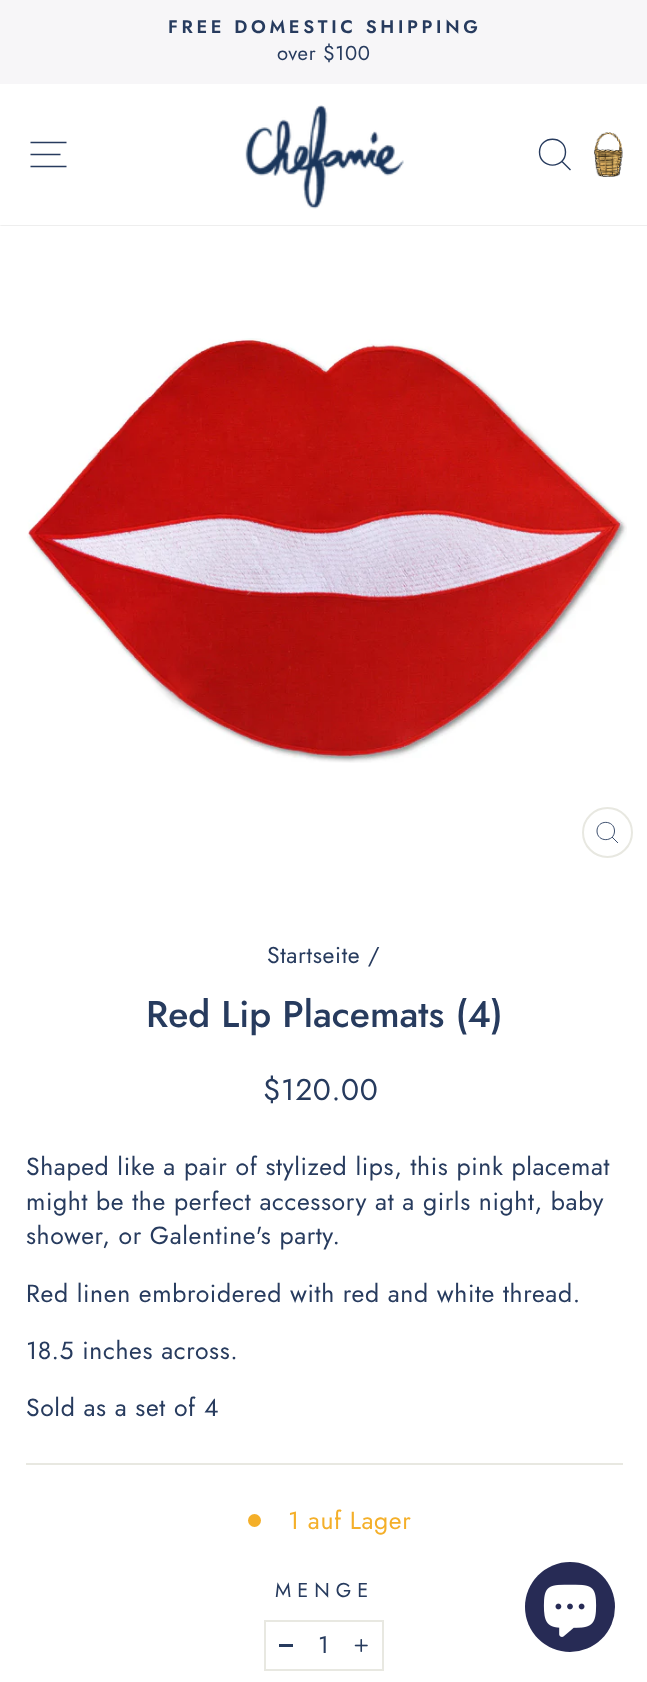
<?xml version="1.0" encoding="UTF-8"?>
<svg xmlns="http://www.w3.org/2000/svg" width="647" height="1682">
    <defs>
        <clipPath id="clip1"><rect x="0" y="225" width="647" height="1"/></clipPath>
        <filter id="blur1" x="-50%" y="-200%" width="200%" height="500%"><feGaussianBlur stdDeviation="1"/></filter>
    </defs>
    <rect width="100%" height="100%" fill="#FFFFFF"/>
    <g clip-path="url(#clip1)">
        <rect x="0" y="0" width="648" height="225" fill="#000000" fill-opacity="0.2" filter="url(#blur1)"/>
    </g>
    <rect x="0" y="0" width="647" height="84" fill="#F7F6F8"/>
    <text x="168" y="33" font-family="Jost" font-size="18.25" font-weight="600" letter-spacing="3.65" fill="#273B5E">FREE DOMESTIC SHIPPING</text>
    <text x="277" y="60" font-family="Jost" font-size="20.25" letter-spacing="0.62" fill="#273B5E">over $100</text>
    <path d="M 30.5 142.5 H 66.5 M 30.5 154.5 H 60.5 M 30.5 166.5 H 66.5" fill="none" stroke="#273B5E" stroke-width="1.4"/>
    <image x="245" y="105" width="159" height="104" href="img_01.png"/>
    <path d="M 565.5 152 C 565.5 169.5 539.5 169.5 539.5 152 C 539.5 135 565.5 135 565.5 152 Z M 570.5 170 L 562 161.5" fill="none" stroke="#273B5E" stroke-width="1.4"/>
    <image x="594" y="132" width="29" height="45" href="img_02.png"/>
    <image x="27" y="338" width="600" height="425" href="img_03.png"/>
    <circle cx="607.5" cy="832.5" r="24.5" fill="none" stroke="#E8E8E1" stroke-width="2"/>
    <path d="M 614.5 831 C 614.5 842.5 597 842.5 597 831 C 597 819.5 614.5 819.5 614.5 831 Z M 618 843 L 612 837" fill="none" stroke="#273B5E" stroke-width="0.9"/>
    <text x="267" y="963" font-family="Jost" font-size="23" letter-spacing="0.62" fill="#273B5E">Startseite /</text>
    <text x="146" y="1027" font-family="Jost" font-size="37.25" font-weight="500" fill="#273B5E">Red Lip Placemats (4)</text>
    <text x="263" y="1100" font-family="Jost" font-size="30" letter-spacing="0.62" fill="#273B5E">$120.00</text>
    <text font-family="Jost" font-size="24.8" letter-spacing="0.62" fill="#273B5E">
        <tspan x="26" y="1175">Shaped like a pair of stylized lips, this pink placemat</tspan>
        <tspan x="26" y="1210">might be the perfect accessory at a girls night, baby</tspan>
        <tspan x="26" y="1244">shower, or Galentine's party.</tspan>
    </text>
    <text x="26" y="1302" font-family="Jost" font-size="24.8" letter-spacing="0.62" fill="#273B5E">Red linen embroidered with red and white thread.</text>
    <text x="26" y="1359" font-family="Jost" font-size="24.8" letter-spacing="0.62" fill="#273B5E">18.5 inches across.</text>
    <text x="26" y="1416" font-family="Jost" font-size="24.8" letter-spacing="0.62" fill="#273B5E">Sold as a set of 4</text>
    <rect x="26" y="1463" width="597" height="2" fill="#E8E8E1"/>
    <circle cx="254.5" cy="1520.5" r="6.5" fill="#F4AF29"/>
    <text x="288" y="1529" font-family="Jost" font-size="24.8" letter-spacing="0.62" fill="#F4AF29">1 auf Lager</text>
    <text x="275" y="1597" font-family="Jost" font-size="20" letter-spacing="6" fill="#273B5E">MENGE</text>
    <rect x="265" y="1621" width="118" height="49" fill="none" stroke="#E8E8E1" stroke-width="2"/>
    <rect x="279" y="1644" width="14" height="3" fill="#273B5E"/>
    <text x="318" y="1653" font-family="Jost" font-size="24" letter-spacing="1" fill="#273B5E">1</text>
    <image x="354" y="1639" width="14" height="13" href="img_04.png"/>
    <circle cx="570" cy="1607" r="45" fill="#272B55"/>
    <image x="543" y="1584" width="54" height="53" href="img_05.png"/>
</svg>
